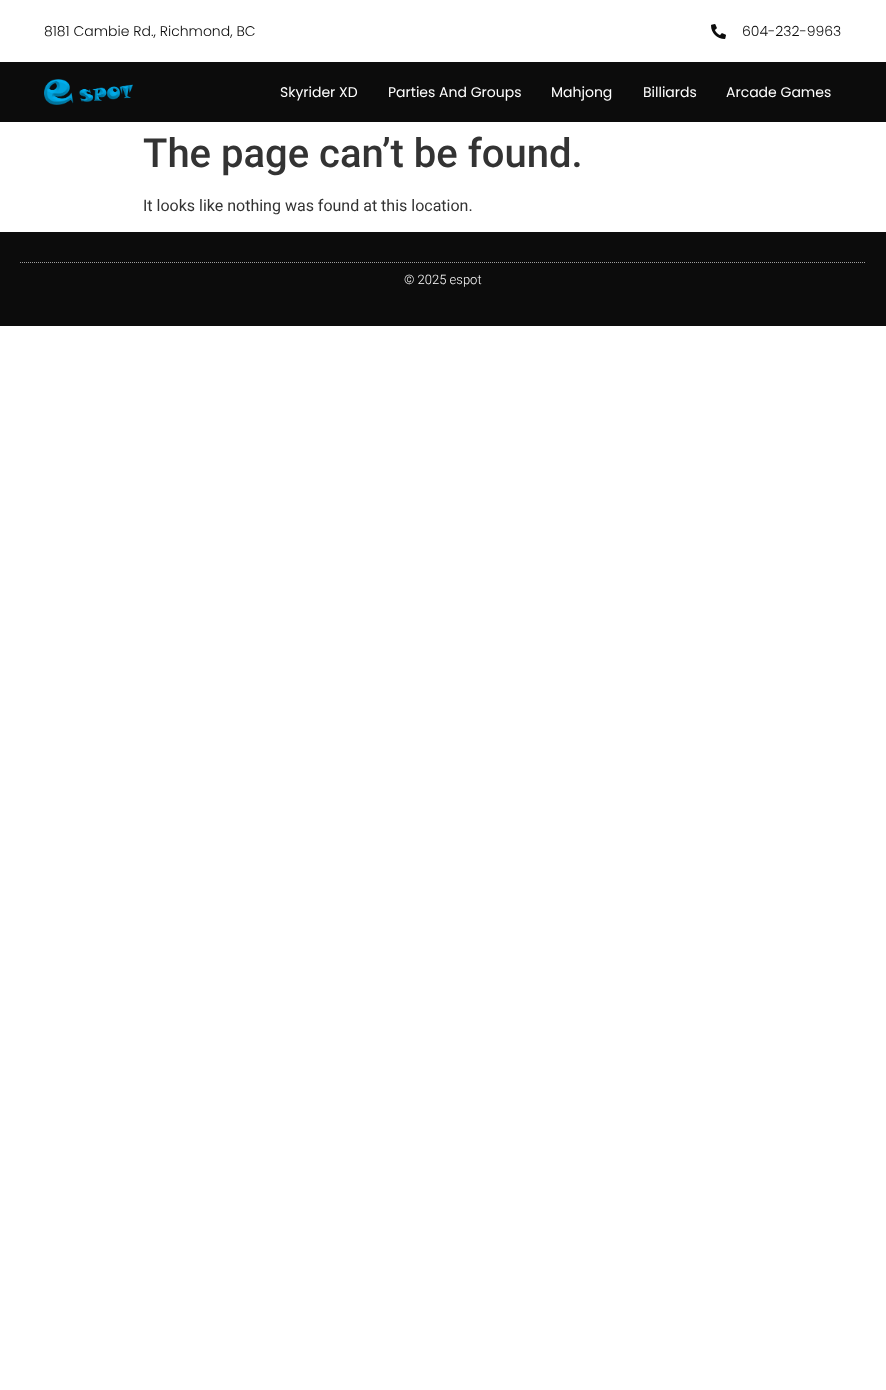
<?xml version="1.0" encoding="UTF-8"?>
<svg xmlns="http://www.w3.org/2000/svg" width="886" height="1390">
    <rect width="100%" height="100%" fill="#FFFFFF"/>
    <text x="44" y="36" font-family="Poppins" font-size="14" font-weight="300" fill="#0C0C0C">8181 Cambie Rd., Richmond, BC</text>
    <image x="711" y="24" width="15" height="15" href="img_01.png"/>
    <text x="742" y="36" font-family="Poppins" font-size="14" font-weight="300" fill="#0C0C0C">604-232-9963</text>
    <rect x="0" y="62" width="886" height="60" fill="#0C0C0C"/>
    <image x="44" y="79" width="89" height="26" href="img_02.png"/>
    <text x="280" y="97" font-family="Poppins" font-size="14" fill="#FFFFFF">Skyrider XD</text>
    <text x="388" y="97" font-family="Poppins" font-size="14" fill="#FFFFFF">Parties And Groups</text>
    <text x="551" y="97" font-family="Poppins" font-size="14" fill="#FFFFFF">Mahjong</text>
    <text x="643" y="97" font-family="Poppins" font-size="14" fill="#FFFFFF">Billiards</text>
    <text x="726" y="97" font-family="Poppins" font-size="14" fill="#FFFFFF">Arcade Games</text>
    <text x="143" y="167" font-family="Roboto" font-size="40" font-weight="500" fill="#333333">The page can’t be found.</text>
    <text x="143" y="211" font-family="Roboto" font-size="16" fill="#333333">It looks like nothing was found at this location.</text>
    <rect x="0" y="232" width="886" height="94" fill="#0C0C0C"/>
    <path d="M 20 262.5 H 866" fill="none" stroke="#A0A0A0" stroke-dasharray="1 1"/>
    <text x="404" y="284" font-family="Roboto" font-size="13" font-weight="300" fill="#FFFFFF">© 2025 espot</text>
</svg>
